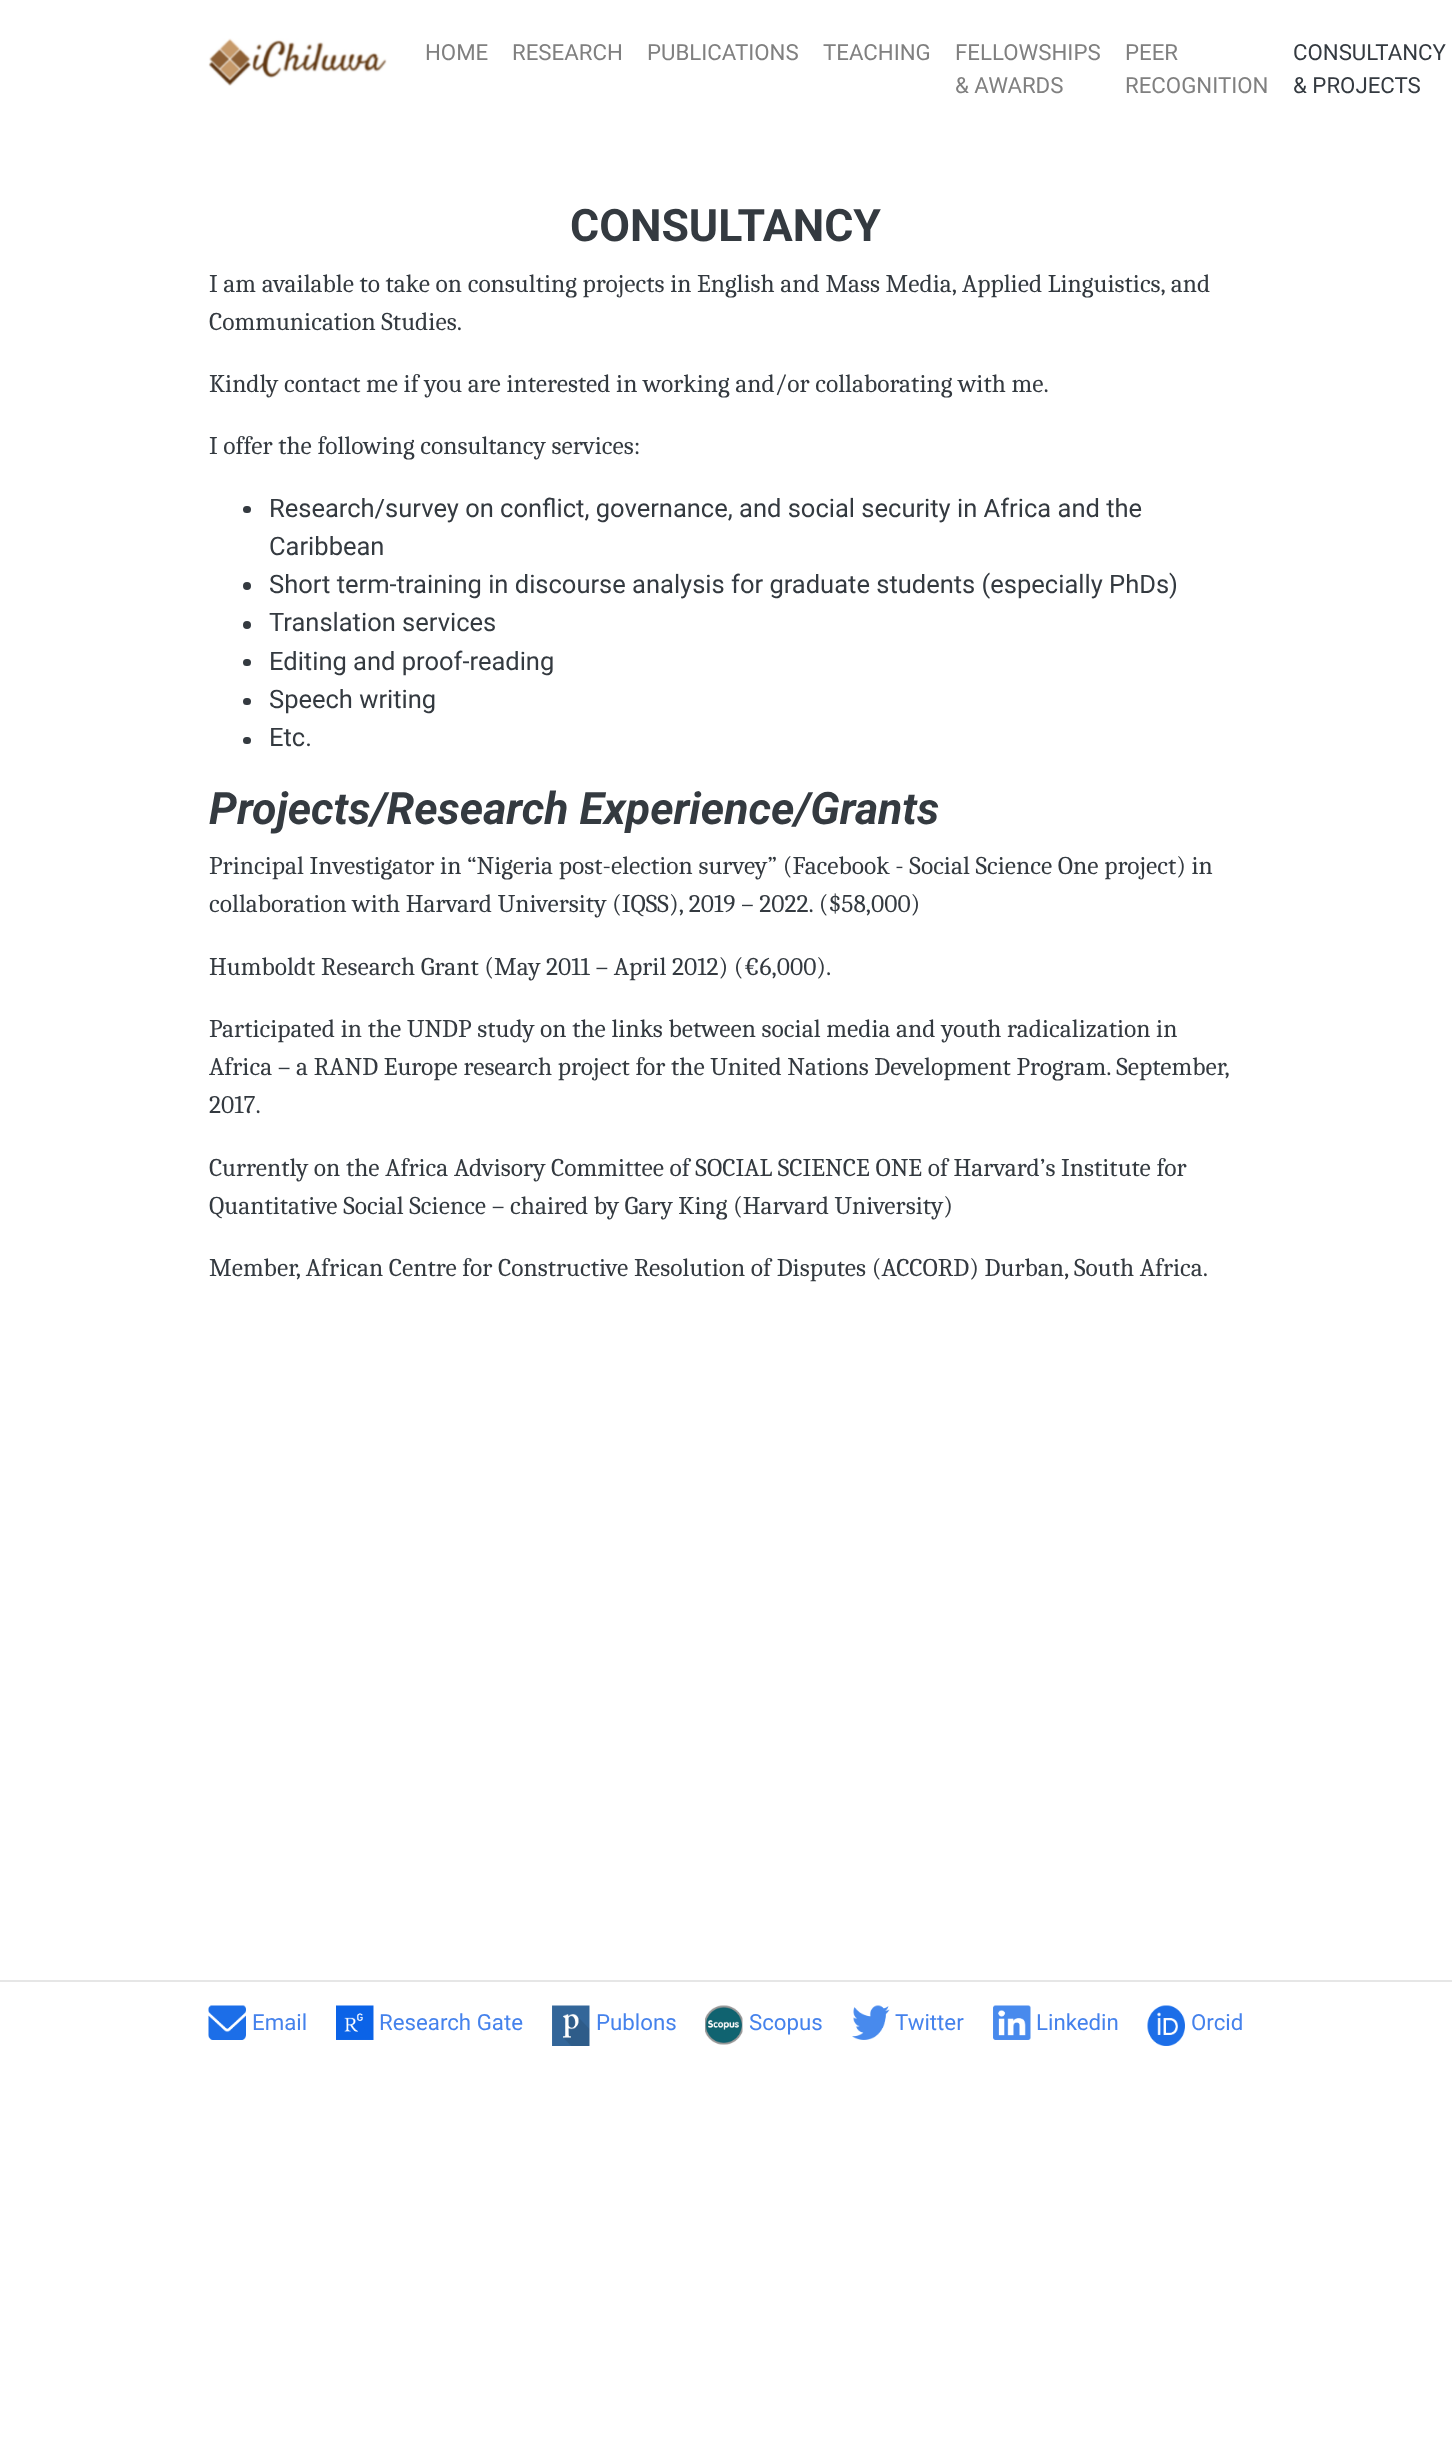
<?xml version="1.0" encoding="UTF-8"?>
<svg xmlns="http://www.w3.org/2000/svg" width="1452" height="2441">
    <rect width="100%" height="100%" fill="#FFFFFF"/>
    <image x="208" y="38" width="179" height="48" href="img_01.png"/>
    <text x="425" y="60" font-family="Roboto" font-size="22.25" fill="#808080">HOME</text>
    <text x="512" y="60" font-family="Roboto" font-size="22.25" fill="#808080">RESEARCH</text>
    <text x="647" y="60" font-family="Roboto" font-size="22.25" fill="#808080">PUBLICATIONS</text>
    <text x="823" y="60" font-family="Roboto" font-size="22.25" fill="#808080">TEACHING</text>
    <text font-family="Roboto" font-size="22.25" fill="#808080">
        <tspan x="955" y="60">FELLOWSHIPS</tspan>
        <tspan x="955" y="93">&amp; AWARDS</tspan>
    </text>
    <text font-family="Roboto" font-size="22.25" fill="#808080">
        <tspan x="1125" y="60">PEER</tspan>
        <tspan x="1125" y="93">RECOGNITION</tspan>
    </text>
    <text font-family="Roboto" font-size="22.25" fill="#343A40">
        <tspan x="1293" y="60">CONSULTANCY</tspan>
        <tspan x="1293" y="93">&amp; PROJECTS</tspan>
    </text>
    <text x="570" y="241" font-family="Roboto" font-size="44.6" font-weight="700" fill="#343A40">CONSULTANCY</text>
    <text font-family="Caladea" font-size="25.5" fill="#343A40">
        <tspan x="209" y="292">I am available to take on consulting projects in English and Mass Media, Applied Linguistics, and</tspan>
        <tspan x="209" y="330">Communication Studies.</tspan>
    </text>
    <text x="209" y="392" font-family="Caladea" font-size="25.5" fill="#343A40">Kindly contact me if you are interested in working and/or collaborating with me.</text>
    <text x="209" y="454" font-family="Caladea" font-size="25.5" fill="#343A40">I offer the following consultancy services:</text>
    <rect x="243" y="506" width="8" height="7" rx="3.5" fill="#343A40"/>
    <text font-family="Roboto" font-size="25.5" fill="#343A40">
        <tspan x="269" y="517">Research/survey on conflict, governance, and social security in Africa and the</tspan>
        <tspan x="269" y="555">Caribbean</tspan>
    </text>
    <circle cx="247" cy="586" r="4" fill="#343A40"/>
    <text x="269" y="593" font-family="Roboto" font-size="25.5" fill="#343A40">Short term-training in discourse analysis for graduate students (especially PhDs)</text>
    <circle cx="247" cy="625" r="4" fill="#343A40"/>
    <text x="269" y="631" font-family="Roboto" font-size="25.5" fill="#343A40">Translation services</text>
    <rect x="243" y="659" width="8" height="7" rx="3.5" fill="#343A40"/>
    <text x="269" y="670" font-family="Roboto" font-size="25.5" fill="#343A40">Editing and proof-reading</text>
    <rect x="243" y="698" width="8" height="7" rx="3.5" fill="#343A40"/>
    <text x="269" y="708" font-family="Roboto" font-size="25.5" fill="#343A40">Speech writing</text>
    <rect x="243" y="737" width="8" height="7" rx="3.5" fill="#343A40"/>
    <text x="269" y="746" font-family="Roboto" font-size="25.5" fill="#343A40">Etc.</text>
    <text x="209" y="824" font-family="Roboto" font-size="44.6" font-weight="700" font-style="italic" fill="#343A40">Projects/Research Experience/Grants</text>
    <text font-family="Caladea" font-size="25.5" fill="#343A40">
        <tspan x="209" y="874">Principal Investigator in “Nigeria post-election survey” (Facebook - Social Science One project) in</tspan>
        <tspan x="209" y="912">collaboration with Harvard University (IQSS), 2019 – 2022. ($58,000)</tspan>
    </text>
    <text x="209" y="975" font-family="Caladea" font-size="25.5" fill="#343A40">Humboldt Research Grant (May 2011 – April 2012) (€6,000).</text>
    <text font-family="Caladea" font-size="25.5" fill="#343A40">
        <tspan x="209" y="1037">Participated in the UNDP study on the links between social media and youth radicalization in</tspan>
        <tspan x="209" y="1075">Africa – a RAND Europe research project for the United Nations Development Program. September,</tspan>
        <tspan x="209" y="1113">2017.</tspan>
    </text>
    <text font-family="Caladea" font-size="25.5" fill="#343A40">
        <tspan x="209" y="1176">Currently on the Africa Advisory Committee of SOCIAL SCIENCE ONE of Harvard’s Institute for</tspan>
        <tspan x="209" y="1214">Quantitative Social Science – chaired by Gary King (Harvard University)</tspan>
    </text>
    <text x="209" y="1276" font-family="Caladea" font-size="25.5" fill="#343A40">Member, African Centre for Constructive Resolution of Disputes (ACCORD) Durban, South Africa.</text>
    <rect x="0" y="1980" width="1452" height="2" fill="#E6E6E6"/>
    <image x="208" y="2005" width="38" height="35" href="img_02.png"/>
    <text x="252" y="2030" font-family="Roboto" font-size="22.25" fill="#4582EC">Email</text>
    <image x="336" y="2005" width="38" height="35" href="img_03.png"/>
    <text x="379" y="2030" font-family="Roboto" font-size="22.25" fill="#4582EC">Research Gate</text>
    <image x="552" y="2005" width="38" height="41" href="img_04.png"/>
    <text x="596" y="2030" font-family="Roboto" font-size="22.25" fill="#4582EC">Publons</text>
    <image x="705" y="2005" width="38" height="40" href="img_05.png"/>
    <text x="749" y="2030" font-family="Roboto" font-size="22.25" fill="#4582EC">Scopus</text>
    <image x="852" y="2005" width="38" height="35" href="img_06.png"/>
    <text x="895" y="2030" font-family="Roboto" font-size="22.25" fill="#4582EC">Twitter</text>
    <image x="993" y="2005" width="38" height="35" href="img_07.png"/>
    <text x="1036" y="2030" font-family="Roboto" font-size="22.25" fill="#4582EC">Linkedin</text>
    <image x="1147" y="2005" width="38" height="41" href="img_08.png"/>
    <text x="1191" y="2030" font-family="Roboto" font-size="22.25" fill="#4582EC">Orcid</text>
</svg>
